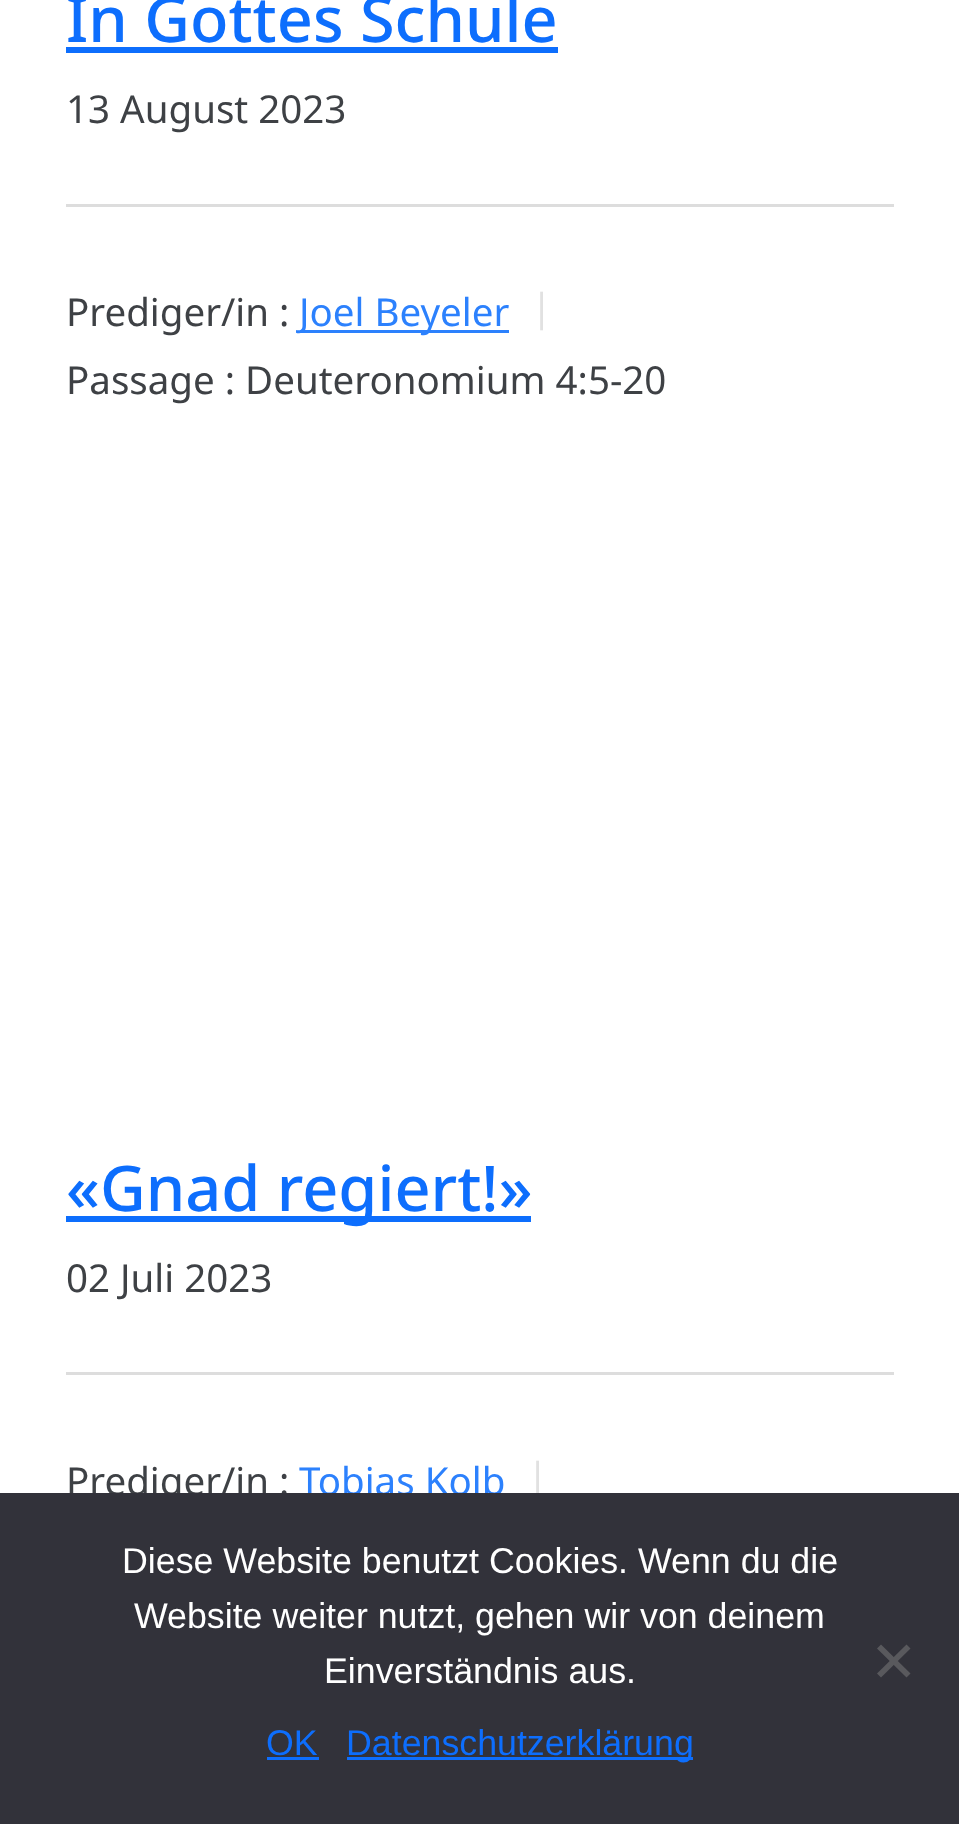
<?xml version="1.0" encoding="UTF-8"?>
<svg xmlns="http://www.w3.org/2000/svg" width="959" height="1824">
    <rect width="100%" height="100%" fill="#FFFFFF"/>
    <text x="66" y="42" font-family="Noto Sans" font-size="63" font-weight="500" fill="#0D6EFD">In Gottes Schule</text>
    <rect x="66" y="47" width="492" height="6" fill="#0D6EFD"/>
    <text x="66" y="123" font-family="Noto Sans" font-size="38.5" fill="#3E4145">13 August 2023</text>
    <rect x="66" y="204" width="828" height="3" fill="#DDDDDD"/>
    <text x="66" y="326" font-family="Noto Sans" font-size="38.5" fill="#3E4145">Prediger/in :</text>
    <rect x="300" y="330" width="209" height="3" fill="#2C81FD"/>
    <text x="299" y="326" font-family="Noto Sans" font-size="38.5" fill="#2C81FD">Joel Beyeler</text>
    <text x="531" y="321" font-family="Noto Sans" font-size="38.5" fill="#E1E1E1">|</text>
    <text x="66" y="394" font-family="Noto Sans" font-size="38.5" fill="#3E4145">Passage : Deuteronomium 4:5-20</text>
    <rect x="66" y="1216" width="465" height="6" fill="#0D6EFD"/>
    <text x="66" y="1211" font-family="Noto Sans" font-size="63" font-weight="500" fill="#0D6EFD">«Gnad regiert!»</text>
    <text x="66" y="1292" font-family="Noto Sans" font-size="38.5" fill="#3E4145">02 Juli 2023</text>
    <rect x="66" y="1372" width="828" height="3" fill="#DDDDDD"/>
    <text x="66" y="1495" font-family="Noto Sans" font-size="38.5" fill="#3E4145">Prediger/in :</text>
    <text x="299" y="1495" font-family="Noto Sans" font-size="38.5" fill="#2C81FD">Tobias Kolb</text>
    <text x="527" y="1490" font-family="Noto Sans" font-size="38.5" fill="#E1E1E1">|</text>
    <rect x="0" y="1493" width="959" height="331" fill="#32323A"/>
    <text x="122" y="1573" font-family="Liberation Sans" font-size="35.75" fill="#FFFFFF">Diese Website benutzt Cookies. Wenn du die</text>
    <text x="134" y="1628" font-family="Liberation Sans" font-size="35.75" fill="#FFFFFF">Website weiter nutzt, gehen wir von deinem</text>
    <text x="324" y="1683" font-family="Liberation Sans" font-size="35.75" fill="#FFFFFF">Einverständnis aus.</text>
    <path d="M 906.5 1644.5 L 910.5 1648.5 L 881 1677.5 L 877 1673.5 Z" fill="#59595D"/>
    <path d="M 877 1648.5 L 881 1644.5 L 910.5 1673.5 L 906.5 1677.5 Z" fill="#59595D"/>
    <text x="266" y="1755" font-family="Liberation Sans" font-size="35.75" fill="#0D6EFD">OK</text>
    <rect x="267" y="1757" width="52" height="3" fill="#0D6EFD"/>
    <rect x="347" y="1757" width="346" height="3" fill="#0D6EFD"/>
    <text x="346" y="1755" font-family="Liberation Sans" font-size="35.75" fill="#0D6EFD">Datenschutzerklärung</text>
</svg>
